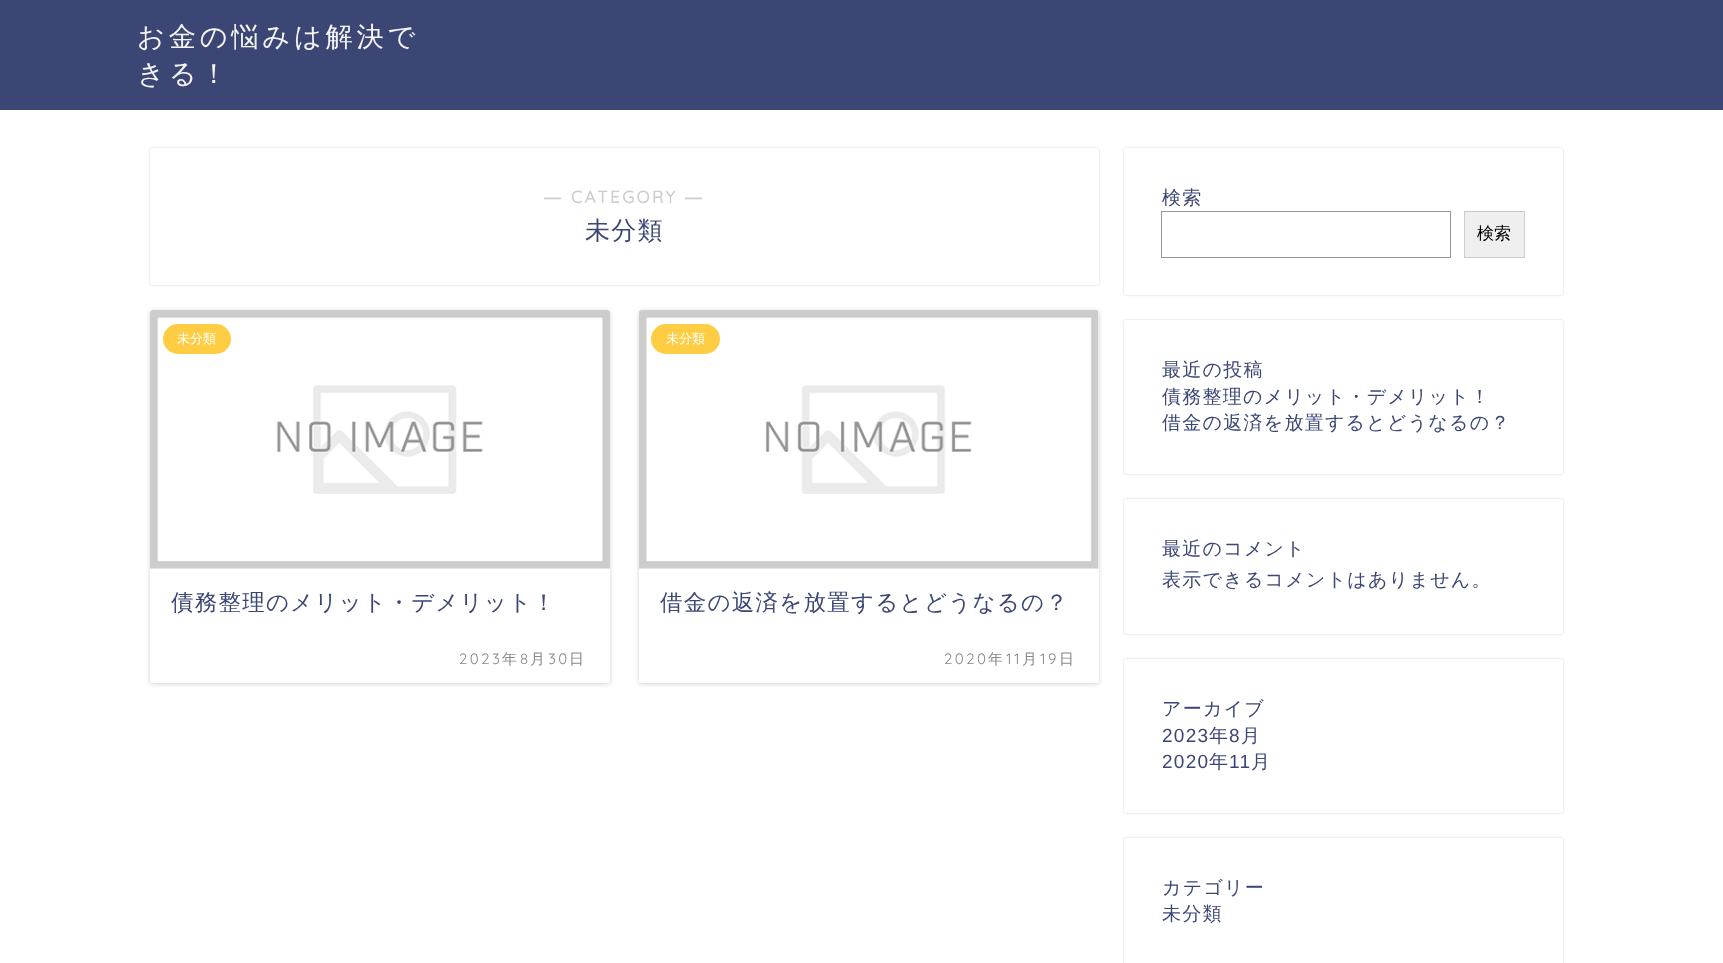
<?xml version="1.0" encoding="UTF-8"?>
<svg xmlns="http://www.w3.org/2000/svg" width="1723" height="963">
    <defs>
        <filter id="blur1" x="-50%" y="-200%" width="200%" height="500%"><feGaussianBlur stdDeviation="1"/></filter>
        <filter id="blur2" x="-50%" y="-200%" width="200%" height="500%"><feGaussianBlur stdDeviation="2"/></filter>
    </defs>
    <rect width="100%" height="100%" fill="#FFFFFF"/>
    <rect x="0" y="0" width="1723" height="110" fill="#3B4675"/>
    <text font-family="WenQuanYi Zen Hei" font-size="27.25" font-weight="500" letter-spacing="3.75" fill="#F4F4F4">
        <tspan x="137" y="46">お金の悩みは解決で</tspan>
        <tspan x="137" y="83">きる！</tspan>
    </text>
    <rect x="150" y="148" width="949" height="137" rx="2.5" fill="#000000" fill-opacity="0.18" filter="url(#blur1)"/>
    <rect x="150" y="148" width="949" height="137" rx="2.5" fill="#FFFFFF"/>
    <text x="544" y="203" font-family="Liberation Sans" font-size="17" font-weight="700" letter-spacing="2.5" fill="#CCCCCC">―</text>
    <text x="571" y="203" font-family="Quicksand" font-size="17" font-weight="700" letter-spacing="2.5" fill="#CCCCCC">CATEGORY</text>
    <text x="685" y="203" font-family="Liberation Sans" font-size="17" font-weight="700" letter-spacing="2.5" fill="#CCCCCC">―</text>
    <text x="585" y="239" font-family="WenQuanYi Zen Hei" font-size="25" font-weight="500" letter-spacing="1.25" fill="#3B4675">未分類</text>
    <rect x="150" y="311" width="460" height="373" rx="2.5" fill="#000000" fill-opacity="0.18" filter="url(#blur2)"/>
    <rect x="150" y="310" width="460" height="373" rx="2.5" fill="#FFFFFF"/>
    <image x="150" y="310" width="460" height="259" href="img_01.png"/>
    <rect x="163" y="324" width="68" height="30" rx="15" fill="#FFCD44"/>
    <text x="177" y="343" font-family="WenQuanYi Zen Hei" font-size="13" font-weight="500" fill="#FFFFFF">未分類</text>
    <text x="171" y="610" font-family="WenQuanYi Zen Hei" font-size="22.5" font-weight="500" letter-spacing="1.25" fill="#3B4675">債務整理のメリット・デメリット！</text>
    <text x="459" y="664" font-family="Quicksand" font-size="15" font-weight="300" letter-spacing="2.5" fill="#888888">2023</text>
    <text x="502" y="664" font-family="WenQuanYi Zen Hei" font-size="15" font-weight="500" letter-spacing="2.5" fill="#888888">年</text>
    <text x="520" y="664" font-family="Quicksand" font-size="15" font-weight="300" letter-spacing="2.5" fill="#888888">8</text>
    <text x="530" y="664" font-family="WenQuanYi Zen Hei" font-size="15" font-weight="500" letter-spacing="2.5" fill="#888888">月</text>
    <text x="548" y="664" font-family="Quicksand" font-size="15" font-weight="300" letter-spacing="2.5" fill="#888888">30</text>
    <text x="569" y="664" font-family="WenQuanYi Zen Hei" font-size="15" font-weight="500" letter-spacing="2.5" fill="#888888">日</text>
    <rect x="639" y="311" width="460" height="373" rx="2.5" fill="#000000" fill-opacity="0.18" filter="url(#blur2)"/>
    <rect x="639" y="310" width="460" height="373" rx="2.5" fill="#FFFFFF"/>
    <image x="639" y="310" width="460" height="259" href="img_02.png"/>
    <rect x="651" y="324" width="69" height="30" rx="15" fill="#FFCD44"/>
    <text x="666" y="343" font-family="WenQuanYi Zen Hei" font-size="13" font-weight="500" fill="#FFFFFF">未分類</text>
    <text x="660" y="610" font-family="WenQuanYi Zen Hei" font-size="22.5" font-weight="500" letter-spacing="1.25" fill="#3B4675">借金の返済を放置するとどうなるの？</text>
    <text x="944" y="664" font-family="Quicksand" font-size="15" font-weight="300" letter-spacing="2.5" fill="#888888">2020</text>
    <text x="988" y="664" font-family="WenQuanYi Zen Hei" font-size="15" font-weight="500" letter-spacing="2.5" fill="#888888">年</text>
    <text x="1006" y="664" font-family="Quicksand" font-size="15" font-weight="300" letter-spacing="2.5" fill="#888888">11</text>
    <text x="1022" y="664" font-family="WenQuanYi Zen Hei" font-size="15" font-weight="500" letter-spacing="2.5" fill="#888888">月</text>
    <text x="1040" y="664" font-family="Quicksand" font-size="15" font-weight="300" letter-spacing="2.5" fill="#888888">19</text>
    <text x="1059" y="664" font-family="WenQuanYi Zen Hei" font-size="15" font-weight="500" letter-spacing="2.5" fill="#888888">日</text>
    <rect x="1124" y="148" width="439" height="147" rx="2.5" fill="#000000" fill-opacity="0.18" filter="url(#blur1)"/>
    <rect x="1124" y="148" width="439" height="147" rx="2.5" fill="#FFFFFF"/>
    <text x="1162" y="204" font-family="WenQuanYi Zen Hei" font-size="19" font-weight="500" letter-spacing="1.25" fill="#3B4675">検索</text>
    <rect x="1161.5" y="211.5" width="289" height="46" fill="none" stroke="#949494"/>
    <rect x="1464.5" y="211.5" width="60" height="46" fill="#EFEFEF" stroke="#CCCCCC"/>
    <text x="1477" y="239" font-family="WenQuanYi Zen Hei" font-size="17" font-weight="500" fill="#000000">検索</text>
    <rect x="1124" y="320" width="439" height="154" rx="2.5" fill="#000000" fill-opacity="0.18" filter="url(#blur1)"/>
    <rect x="1124" y="320" width="439" height="154" rx="2.5" fill="#FFFFFF"/>
    <text font-family="WenQuanYi Zen Hei" font-size="19" font-weight="500" letter-spacing="1.25" fill="#3B4675">
        <tspan x="1162" y="376">最近の投稿</tspan>
        <tspan x="1162" y="403">債務整理のメリット・デメリット！</tspan>
        <tspan x="1162" y="429">借金の返済を放置するとどうなるの？</tspan>
    </text>
    <rect x="1124" y="499" width="439" height="135" rx="2.5" fill="#000000" fill-opacity="0.18" filter="url(#blur1)"/>
    <rect x="1124" y="499" width="439" height="135" rx="2.5" fill="#FFFFFF"/>
    <text font-family="WenQuanYi Zen Hei" font-size="19" font-weight="500" letter-spacing="1.25" fill="#3B4675">
        <tspan x="1162" y="555">最近のコメント</tspan>
        <tspan x="1162" y="586">表示できるコメントはありません。</tspan>
    </text>
    <rect x="1124" y="659" width="439" height="154" rx="2.5" fill="#000000" fill-opacity="0.18" filter="url(#blur1)"/>
    <rect x="1124" y="659" width="439" height="154" rx="2.5" fill="#FFFFFF"/>
    <text x="1162" y="715" font-family="WenQuanYi Zen Hei" font-size="19" font-weight="500" letter-spacing="1.25" fill="#3B4675">アーカイブ</text>
    <text x="1162" y="742" font-family="Liberation Sans" font-size="19" letter-spacing="1.25" fill="#3B4675">2023</text>
    <text x="1209" y="742" font-family="WenQuanYi Zen Hei" font-size="19" font-weight="500" letter-spacing="1.25" fill="#3B4675">年</text>
    <text x="1229" y="742" font-family="Liberation Sans" font-size="19" letter-spacing="1.25" fill="#3B4675">8</text>
    <text x="1241" y="742" font-family="WenQuanYi Zen Hei" font-size="19" font-weight="500" letter-spacing="1.25" fill="#3B4675">月</text>
    <text x="1162" y="768" font-family="Liberation Sans" font-size="19" letter-spacing="1.25" fill="#3B4675">2020</text>
    <text x="1209" y="768" font-family="WenQuanYi Zen Hei" font-size="19" font-weight="500" letter-spacing="1.25" fill="#3B4675">年</text>
    <text x="1229" y="768" font-family="Liberation Sans" font-size="19" letter-spacing="1.25" fill="#3B4675">11</text>
    <text x="1251" y="768" font-family="WenQuanYi Zen Hei" font-size="19" font-weight="500" letter-spacing="1.25" fill="#3B4675">月</text>
    <rect x="1124" y="838" width="439" height="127" rx="2.5" fill="#000000" fill-opacity="0.18" filter="url(#blur1)"/>
    <rect x="1124" y="838" width="439" height="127" rx="2.5" fill="#FFFFFF"/>
    <text font-family="WenQuanYi Zen Hei" font-size="19" font-weight="500" letter-spacing="1.25" fill="#3B4675">
        <tspan x="1162" y="894">カテゴリー</tspan>
        <tspan x="1162" y="920">未分類</tspan>
    </text>
</svg>
